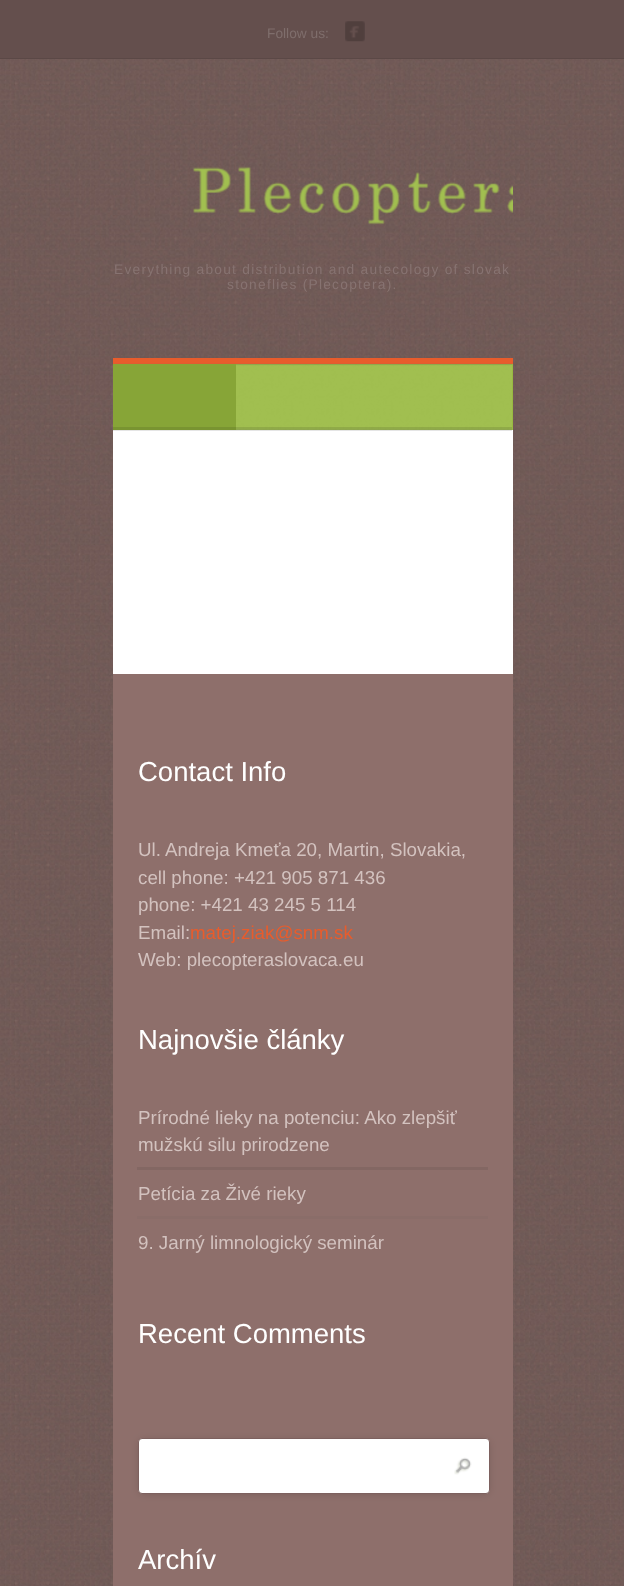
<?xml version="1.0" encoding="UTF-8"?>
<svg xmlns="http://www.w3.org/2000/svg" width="624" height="1586">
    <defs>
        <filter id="blur1" x="-50%" y="-200%" width="200%" height="500%"><feGaussianBlur stdDeviation="4.5"/></filter>
    </defs>
    <rect width="100%" height="100%" fill="#FFFFFF"/>
    <image x="0" y="59" width="624" height="1527" href="img_01.png"/>
    <rect x="0" y="0" width="624" height="58" fill="#644F4D"/>
    <rect x="0" y="58" width="624" height="1" fill="#5B4846"/>
    <text x="267" y="38" font-family="Liberation Sans" font-size="13.75" fill="#7F6E6C">Follow us:</text>
    <image x="345" y="21" width="20" height="21" href="img_02.png"/>
    <image x="193" y="166" width="320" height="59" href="img_03.png"/>
    <text x="114" y="274" font-family="Liberation Sans" font-size="13.75" letter-spacing="1.25" fill="#877371">Everything about distribution and autecology of slovak</text>
    <text x="227" y="289" font-family="Liberation Sans" font-size="13.75" letter-spacing="1.25" fill="#877371">stoneflies (Plecoptera).</text>
    <rect x="113" y="358" width="400" height="6" fill="#E85C2C"/>
    <rect x="236" y="364" width="277" height="66" fill="#97B93D"/>
    <image x="112" y="363" width="401" height="67" href="img_04.png"/>
    <rect x="113" y="364" width="123" height="66" fill="#87A537"/>
    <rect x="113" y="430" width="400" height="244" fill="#FFFFFF"/>
    <rect x="113" y="427" width="399" height="4" fill="#000000" fill-opacity="0.05"/>
    <rect x="113" y="427" width="399" height="4" fill="#000000" fill-opacity="0.05"/>
    <rect x="113" y="674" width="400" height="912" fill="#8E6F6B"/>
    <text x="138" y="781" font-family="Liberation Sans" font-size="27.5" fill="#FFFFFF">Contact Info</text>
    <text font-family="Liberation Sans" font-size="18.75" fill="#D3C2BF">
        <tspan x="138" y="856">Ul. Andreja Kmeťa 20, Martin, Slovakia,</tspan>
        <tspan x="138" y="884">cell phone: +421 905 871 436</tspan>
        <tspan x="138" y="911">phone: +421 43 245 5 114</tspan>
        <tspan x="138" y="939">Email:</tspan>
    </text>
    <text x="190" y="939" font-family="Liberation Sans" font-size="18.75" fill="#E85C2C">matej.ziak@snm.sk</text>
    <text x="138" y="966" font-family="Liberation Sans" font-size="18.75" fill="#D3C2BF">Web: plecopteraslovaca.eu</text>
    <text x="138" y="1049" font-family="Liberation Sans" font-size="27.5" fill="#FFFFFF">Najnovšie články</text>
    <rect x="137" y="1167" width="351" height="3" fill="#836763"/>
    <text font-family="Liberation Sans" font-size="18.75" fill="#D3C2BF">
        <tspan x="138" y="1124">Prírodné lieky na potenciu: Ako zlepšiť</tspan>
        <tspan x="138" y="1151">mužskú silu prirodzene</tspan>
    </text>
    <rect x="137" y="1216" width="351" height="3" fill="#8A6D69"/>
    <text x="138" y="1200" font-family="Liberation Sans" font-size="18.75" fill="#D3C2BF">Petícia za Živé rieky</text>
    <text x="138" y="1249" font-family="Liberation Sans" font-size="18.75" fill="#D3C2BF">9. Jarný limnologický seminár</text>
    <text x="138" y="1343" font-family="Liberation Sans" font-size="27.5" fill="#FFFFFF">Recent Comments</text>
    <rect x="140" y="1441" width="348" height="52" rx="1" fill="#000000" fill-opacity="0.19" filter="url(#blur1)"/>
    <rect x="138.5" y="1438.5" width="351" height="55" rx="3.5" fill="#FFFFFF" stroke="#7D615F"/>
    <image x="454" y="1457" width="18" height="18" href="img_05.png"/>
    <text x="138" y="1569" font-family="Liberation Sans" font-size="27.5" fill="#FFFFFF">Archív</text>
</svg>
